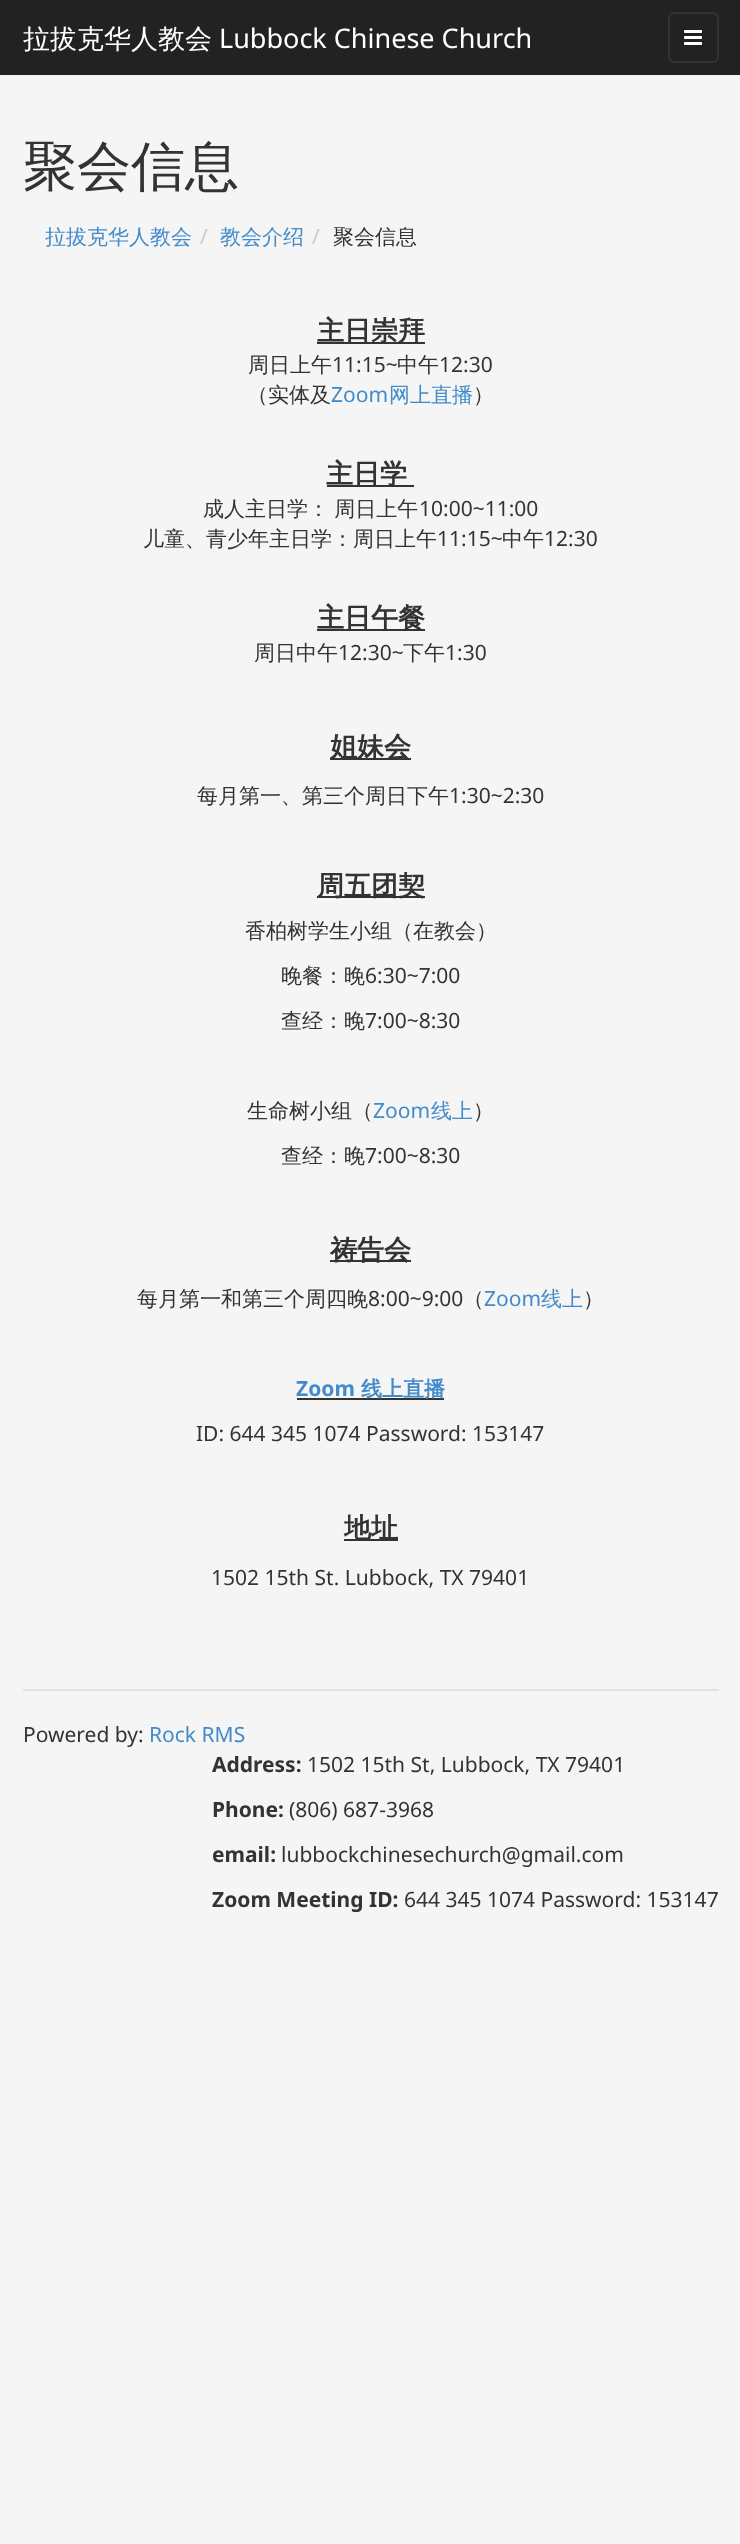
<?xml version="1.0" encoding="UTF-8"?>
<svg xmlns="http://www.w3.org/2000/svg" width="740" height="2544">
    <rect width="100%" height="100%" fill="#F5F5F5"/>
    <rect x="0" y="0" width="740" height="75" fill="#222222"/>
    <text x="23" y="48" font-family="WenQuanYi Zen Hei" font-size="27" font-weight="500" fill="#FFFFFF">拉拔克华人教会</text>
    <text x="219" y="48" font-family="Noto Sans" font-size="27" fill="#FFFFFF">Lubbock Chinese Church</text>
    <rect x="669" y="13" width="49" height="49" rx="5" fill="none" stroke="#333333" stroke-width="2"/>
    <image x="684" y="30" width="18" height="15" href="img_01.png"/>
    <text x="23" y="185" font-family="WenQuanYi Zen Hei" font-size="54" font-weight="500" fill="#333333">聚会信息</text>
    <text x="45" y="244" font-family="WenQuanYi Zen Hei" font-size="21" font-weight="500" fill="#428BCA">拉拔克华人教会</text>
    <text x="200" y="244" font-family="Noto Sans" font-size="21" fill="#CCCCCC">/</text>
    <text x="220" y="244" font-family="WenQuanYi Zen Hei" font-size="21" font-weight="500" fill="#428BCA">教会介绍</text>
    <text x="312" y="244" font-family="Noto Sans" font-size="21" fill="#CCCCCC">/</text>
    <text x="333" y="244" font-family="WenQuanYi Zen Hei" font-size="21" font-weight="500" fill="#333333">聚会信息</text>
    <rect x="317" y="342" width="108" height="2" fill="#333333"/>
    <text x="317" y="340" font-family="WenQuanYi Zen Hei" font-size="27" font-weight="700" fill="#333333">主日崇拜</text>
    <text x="248" y="372" font-family="WenQuanYi Zen Hei" font-size="21" font-weight="500" fill="#333333">周日上午</text>
    <text x="332" y="372" font-family="Noto Sans" font-size="21" fill="#333333">11:15~</text>
    <text x="397" y="372" font-family="WenQuanYi Zen Hei" font-size="21" font-weight="500" fill="#333333">中午</text>
    <text x="439" y="372" font-family="Noto Sans" font-size="21" fill="#333333">12:30</text>
    <text x="247" y="402" font-family="WenQuanYi Zen Hei" font-size="21" font-weight="500" fill="#333333">（实体及</text>
    <text x="331" y="402" font-family="Noto Sans" font-size="21" fill="#428BCA">Zoom</text>
    <text x="389" y="402" font-family="WenQuanYi Zen Hei" font-size="21" font-weight="500" fill="#428BCA">网上直播</text>
    <text x="473" y="402" font-family="WenQuanYi Zen Hei" font-size="21" font-weight="500" fill="#333333">）</text>
    <rect x="327" y="485" width="87" height="2" fill="#333333"/>
    <text x="326" y="483" font-family="WenQuanYi Zen Hei" font-size="27" font-weight="700" fill="#333333">主日学</text>
    <text x="203" y="516" word-spacing="-1" font-family="WenQuanYi Zen Hei" font-size="21" font-weight="500" fill="#333333">成人主日学： 周日上午</text>
    <text x="419" y="516" font-family="Noto Sans" font-size="21" fill="#333333">10:00~11:00</text>
    <text x="143" y="546" font-family="WenQuanYi Zen Hei" font-size="21" font-weight="500" fill="#333333">儿童、青少年主日学：周日上午</text>
    <text x="437" y="546" font-family="Noto Sans" font-size="21" fill="#333333">11:15~</text>
    <text x="502" y="546" font-family="WenQuanYi Zen Hei" font-size="21" font-weight="500" fill="#333333">中午</text>
    <text x="544" y="546" font-family="Noto Sans" font-size="21" fill="#333333">12:30</text>
    <rect x="317" y="629" width="108" height="2" fill="#333333"/>
    <text x="317" y="627" font-family="WenQuanYi Zen Hei" font-size="27" font-weight="700" fill="#333333">主日午餐</text>
    <text x="254" y="660" font-family="WenQuanYi Zen Hei" font-size="21" font-weight="500" fill="#333333">周日中午</text>
    <text x="338" y="660" font-family="Noto Sans" font-size="21" fill="#333333">12:30~</text>
    <text x="403" y="660" font-family="WenQuanYi Zen Hei" font-size="21" font-weight="500" fill="#333333">下午</text>
    <text x="445" y="660" font-family="Noto Sans" font-size="21" fill="#333333">1:30</text>
    <rect x="330" y="758" width="81" height="2" fill="#333333"/>
    <text x="330" y="756" font-family="WenQuanYi Zen Hei" font-size="27" font-weight="700" fill="#333333">姐妹会</text>
    <text x="197" y="803" font-family="WenQuanYi Zen Hei" font-size="21" font-weight="500" fill="#333333">每月第一、第三个周日下午</text>
    <text x="449" y="803" font-family="Noto Sans" font-size="21" fill="#333333">1:30~2:30</text>
    <rect x="317" y="896" width="108" height="2" fill="#333333"/>
    <text x="317" y="895" font-family="WenQuanYi Zen Hei" font-size="27" font-weight="700" fill="#333333">周五团契</text>
    <text x="245" y="938" font-family="WenQuanYi Zen Hei" font-size="21" font-weight="500" fill="#333333">香柏树学生小组（在教会）</text>
    <text x="281" y="983" font-family="WenQuanYi Zen Hei" font-size="21" font-weight="500" fill="#333333">晚餐：晚</text>
    <text x="365" y="983" font-family="Noto Sans" font-size="21" fill="#333333">6:30~7:00</text>
    <text x="281" y="1028" font-family="WenQuanYi Zen Hei" font-size="21" font-weight="500" fill="#333333">查经：晚</text>
    <text x="365" y="1028" font-family="Noto Sans" font-size="21" fill="#333333">7:00~8:30</text>
    <text x="247" y="1118" font-family="WenQuanYi Zen Hei" font-size="21" font-weight="500" fill="#333333">生命树小组（</text>
    <text x="373" y="1118" font-family="Noto Sans" font-size="21" fill="#428BCA">Zoom</text>
    <text x="431" y="1118" font-family="WenQuanYi Zen Hei" font-size="21" font-weight="500" fill="#428BCA">线上</text>
    <text x="473" y="1118" font-family="WenQuanYi Zen Hei" font-size="21" font-weight="500" fill="#333333">）</text>
    <text x="281" y="1163" font-family="WenQuanYi Zen Hei" font-size="21" font-weight="500" fill="#333333">查经：晚</text>
    <text x="365" y="1163" font-family="Noto Sans" font-size="21" fill="#333333">7:00~8:30</text>
    <rect x="330" y="1260" width="81" height="2" fill="#333333"/>
    <text x="330" y="1259" font-family="WenQuanYi Zen Hei" font-size="27" font-weight="700" fill="#333333">祷告会</text>
    <text x="137" y="1306" font-family="WenQuanYi Zen Hei" font-size="21" font-weight="500" fill="#333333">每月第一和第三个周四晚</text>
    <text x="368" y="1306" font-family="Noto Sans" font-size="21" fill="#333333">8:00~9:00</text>
    <text x="463" y="1306" font-family="WenQuanYi Zen Hei" font-size="21" font-weight="500" fill="#333333">（</text>
    <text x="484" y="1306" font-family="Noto Sans" font-size="21" fill="#428BCA">Zoom</text>
    <text x="541" y="1306" font-family="WenQuanYi Zen Hei" font-size="21" font-weight="500" fill="#428BCA">线上</text>
    <text x="583" y="1306" font-family="WenQuanYi Zen Hei" font-size="21" font-weight="500" fill="#333333">）</text>
    <text x="296" y="1396" font-family="Noto Sans" font-size="21" font-weight="700" fill="#428BCA">Zoom</text>
    <rect x="297" y="1398" width="147" height="2" fill="#333333"/>
    <text x="361" y="1396" font-family="WenQuanYi Zen Hei" font-size="21" font-weight="700" fill="#428BCA">线上直播</text>
    <text x="196" y="1441" font-family="Noto Sans" font-size="21" fill="#333333">ID: 644 345 1074 Password: 153147</text>
    <rect x="344" y="1539" width="54" height="2" fill="#333333"/>
    <text x="344" y="1537" font-family="WenQuanYi Zen Hei" font-size="27" font-weight="700" fill="#333333">地址</text>
    <text x="211" y="1585" font-family="Noto Sans" font-size="21" fill="#333333">1502 15th St. Lubbock, TX 79401</text>
    <rect x="23" y="1689" width="696" height="2" fill="#DEE2E6"/>
    <text x="23" y="1742" font-family="Noto Sans" font-size="21" fill="#333333">Powered by:</text>
    <text x="149" y="1742" font-family="Noto Sans" font-size="21" fill="#428BCA">Rock RMS</text>
    <text x="212" y="1772" font-family="Noto Sans" font-size="21" font-weight="700" fill="#333333">Address:</text>
    <text x="307" y="1772" font-family="Noto Sans" font-size="21" fill="#333333">1502 15th St, Lubbock, TX 79401</text>
    <text x="212" y="1817" font-family="Noto Sans" font-size="21" font-weight="700" fill="#333333">Phone:</text>
    <text x="289" y="1817" font-family="Noto Sans" font-size="21" fill="#333333">(806) 687-3968</text>
    <text x="212" y="1862" font-family="Noto Sans" font-size="21" font-weight="700" fill="#333333">email:</text>
    <text x="281" y="1862" font-family="Noto Sans" font-size="21" fill="#333333">lubbockchinesechurch@gmail.com</text>
    <text x="212" y="1907" font-family="Noto Sans" font-size="21" font-weight="700" fill="#333333">Zoom Meeting ID:</text>
    <text x="404" y="1907" font-family="Noto Sans" font-size="21" fill="#333333">644 345 1074 Password: 153147</text>
</svg>
